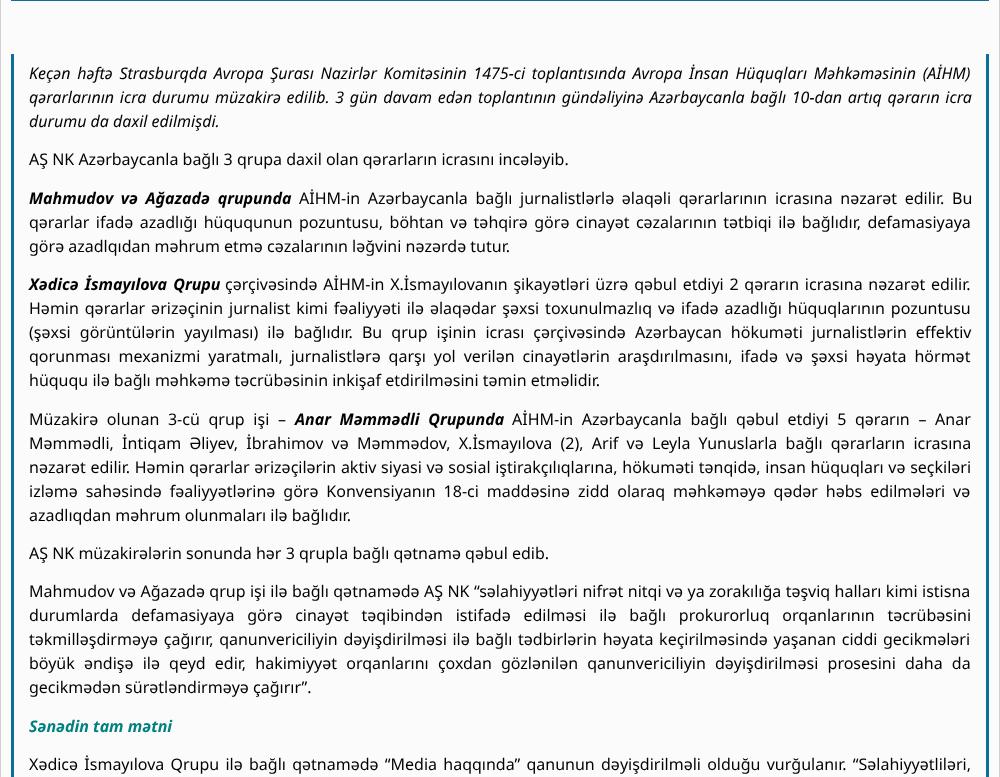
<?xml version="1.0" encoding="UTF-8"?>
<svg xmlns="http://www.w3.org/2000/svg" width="1000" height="777">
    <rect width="100%" height="100%" fill="#FBFBFB"/>
    <rect x="999" y="0" width="1" height="777" fill="#D0D0D0"/>
    <rect x="0" y="0" width="1" height="777" fill="#D0D0D0"/>
    <rect x="11" y="0" width="978" height="1" fill="#0C6F99"/>
    <rect x="986" y="54" width="3" height="723" fill="#0C6F99"/>
    <rect x="11" y="54" width="3" height="723" fill="#0C6F99"/>
    <text font-family="Noto Sans" font-size="16" font-style="italic" fill="#000000">
        <tspan x="29" y="79" word-spacing="2.5">Keçən həftə Strasburqda Avropa Şurası Nazirlər Komitəsinin 1475-ci toplantısında Avropa İnsan Hüquqları Məhkəməsinin (AİHM)</tspan>
        <tspan x="29" y="103" word-spacing="1.5">qərarlarının icra durumu müzakirə edilib. 3 gün davam edən toplantının gündəliyinə Azərbaycanla bağlı 10-dan artıq qərarın icra</tspan>
        <tspan x="29" y="127">durumu da daxil edilmişdi.</tspan>
    </text>
    <text x="29" y="165" font-family="Noto Sans" font-size="16" fill="#000000">AŞ NK Azərbaycanla bağlı 3 qrupa daxil olan qərarların icrasını incələyib.</text>
    <text x="29" y="204" word-spacing="3.5" font-family="Noto Sans" font-size="16" font-weight="700" font-style="italic" fill="#000000">Mahmudov və Ağazadə qrupunda</text>
    <text x="299" y="204" word-spacing="3.5" font-family="Noto Sans" font-size="16" fill="#000000">AİHM-in Azərbaycanla bağlı jurnalistlərlə əlaqəli qərarlarının icrasına nəzarət edilir. Bu</text>
    <text font-family="Noto Sans" font-size="16" fill="#000000">
        <tspan x="29" y="228" word-spacing="2.25">qərarlar ifadə azadlığı hüququnun pozuntusu, böhtan və təhqirə görə cinayət cəzalarının tətbiqi ilə bağlıdır, defamasiyaya</tspan>
        <tspan x="29" y="252">görə azadlqıdan məhrum etmə cəzalarının ləğvini nəzərdə tutur.</tspan>
    </text>
    <text x="29" y="290" word-spacing="2" font-family="Noto Sans" font-size="16" font-weight="700" font-style="italic" fill="#000000">Xədicə İsmayılova Qrupu</text>
    <text x="225" y="290" word-spacing="1.6" font-family="Noto Sans" font-size="16" fill="#000000">çərçivəsində AİHM-in X.İsmayılovanın şikayətləri üzrə qəbul etdiyi 2 qərarın icrasına nəzarət edilir.</text>
    <text font-family="Noto Sans" font-size="16" fill="#000000">
        <tspan x="29" y="314" word-spacing="1.75">Həmin qərarlar ərizəçinin jurnalist kimi fəaliyyəti ilə əlaqədar şəxsi toxunulmazlıq və ifadə azadlığı hüquqlarının pozuntusu</tspan>
        <tspan x="29" y="338" word-spacing="4.9">(şəxsi görüntülərin yayılması) ilə bağlıdır. Bu qrup işinin icrası çərçivəsində Azərbaycan hökuməti jurnalistlərin effektiv</tspan>
        <tspan x="29" y="362" word-spacing="3.75">qorunması mexanizmi yaratmalı, jurnalistlərə qarşı yol verilən cinayətlərin araşdırılmasını, ifadə və şəxsi həyata hörmət</tspan>
        <tspan x="29" y="386">hüququ ilə bağlı məhkəmə təcrübəsinin inkişaf etdirilməsini təmin etməlidir.</tspan>
    </text>
    <text x="29" y="425" word-spacing="4.5" font-family="Noto Sans" font-size="16" fill="#000000">Müzakirə olunan 3-cü qrup işi –</text>
    <text x="295" y="425" word-spacing="4.5" font-family="Noto Sans" font-size="16" font-weight="700" font-style="italic" fill="#000000">Anar Məmmədli Qrupunda</text>
    <text x="512" y="425" word-spacing="4.5" font-family="Noto Sans" font-size="16" fill="#000000">AİHM-in Azərbaycanla bağlı qəbul etdiyi 5 qərarın – Anar</text>
    <text font-family="Noto Sans" font-size="16" fill="#000000">
        <tspan x="29" y="449" word-spacing="4.1">Məmmədli, İntiqam Əliyev, İbrahimov və Məmmədov, X.İsmayılova (2), Arif və Leyla Yunuslarla bağlı qərarların icrasına</tspan>
        <tspan x="29" y="473" word-spacing="0.5">nəzarət edilir. Həmin qərarlar ərizəçilərin aktiv siyasi və sosial iştirakçılıqlarına, hökuməti tənqidə, insan hüquqları və seçkiləri</tspan>
        <tspan x="29" y="497" word-spacing="3.75">izləmə sahəsində fəaliyyətlərinə görə Konvensiyanın 18-ci maddəsinə zidd olaraq məhkəməyə qədər həbs edilmələri və</tspan>
        <tspan x="29" y="521">azadlıqdan məhrum olunmaları ilə bağlıdır.</tspan>
    </text>
    <text x="29" y="559" font-family="Noto Sans" font-size="16" fill="#000000">AŞ NK müzakirələrin sonunda hər 3 qrupla bağlı qətnamə qəbul edib.</text>
    <text font-family="Noto Sans" font-size="16" fill="#000000">
        <tspan x="29" y="597" word-spacing="0.25">Mahmudov və Ağazadə qrup işi ilə bağlı qətnamədə AŞ NK “səlahiyyətləri nifrət nitqi və ya zorakılığa təşviq halları kimi istisna</tspan>
        <tspan x="29" y="621" word-spacing="8.6">durumlarda defamasiyaya görə cinayət təqibindən istifadə edilməsi ilə bağlı prokurorluq orqanlarının təcrübəsini</tspan>
        <tspan x="29" y="645" word-spacing="1.5">təkmilləşdirməyə çağırır, qanunvericiliyin dəyişdirilməsi ilə bağlı tədbirlərin həyata keçirilməsində yaşanan ciddi gecikmələri</tspan>
        <tspan x="29" y="669" word-spacing="5">böyük əndişə ilə qeyd edir, hakimiyyət orqanlarını çoxdan gözlənilən qanunvericiliyin dəyişdirilməsi prosesini daha da</tspan>
        <tspan x="29" y="693">gecikmədən sürətləndirməyə çağırır”.</tspan>
    </text>
    <text x="29" y="732" font-family="Noto Sans" font-size="16" font-weight="700" font-style="italic" fill="#008080">Sənədin tam mətni</text>
    <text x="29" y="770" word-spacing="2.1" font-family="Noto Sans" font-size="16" fill="#000000">Xədicə İsmayılova Qrupu ilə bağlı qətnamədə “Media haqqında” qanunun dəyişdirilməli olduğu vurğulanır. “Səlahiyyətliləri,</text>
</svg>
